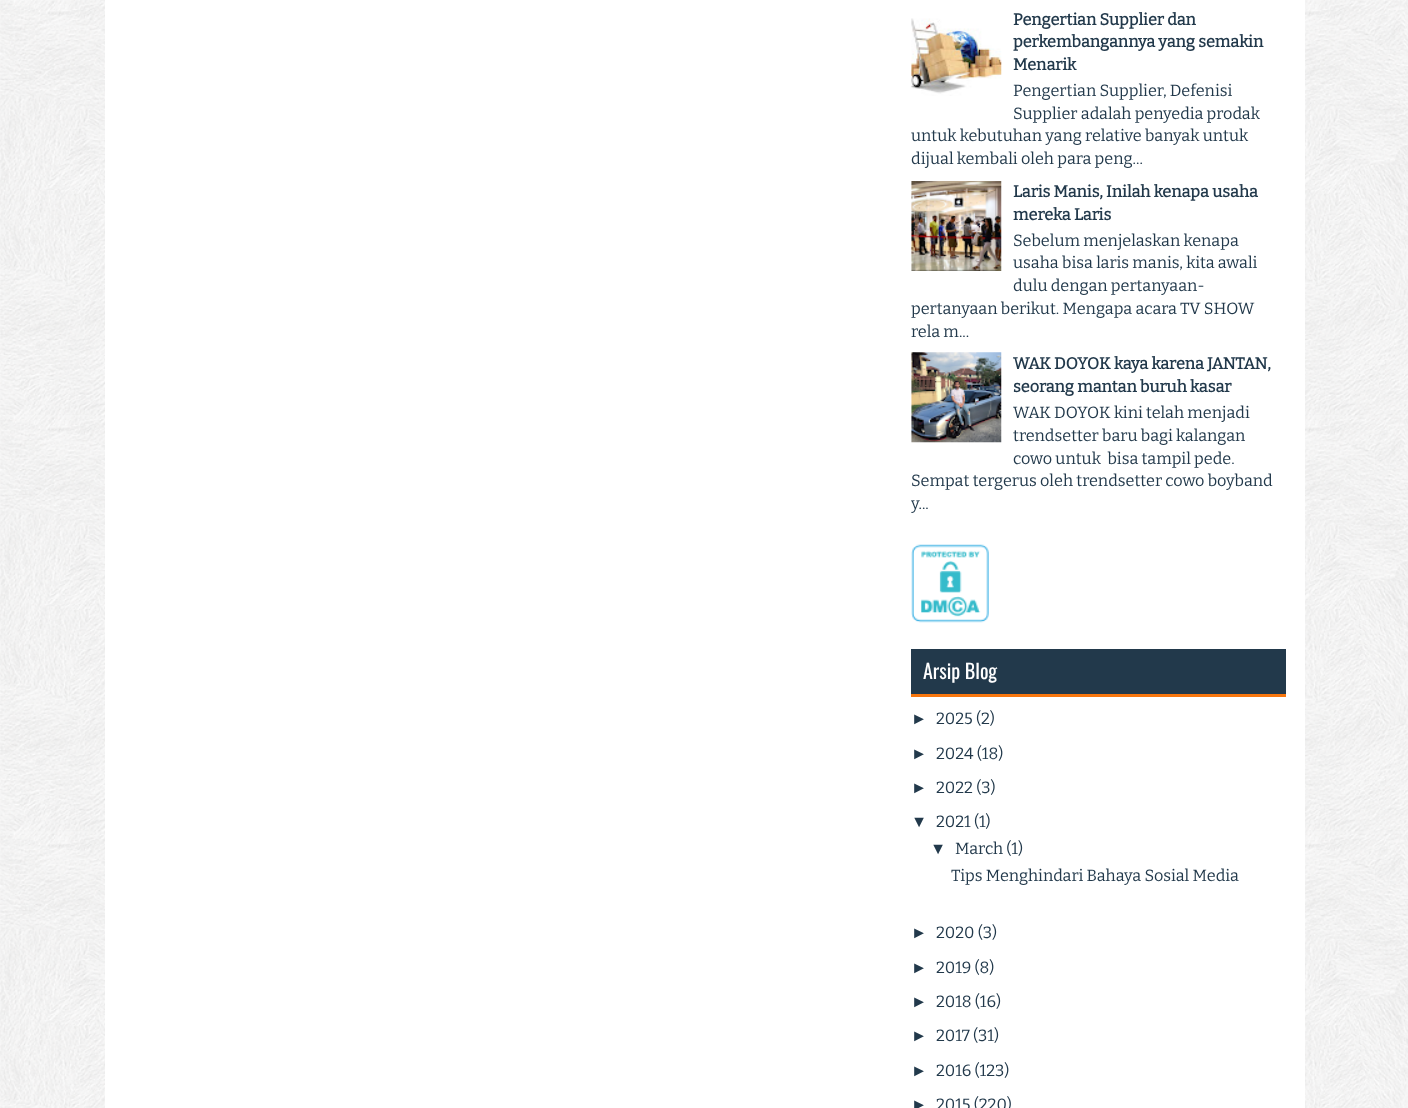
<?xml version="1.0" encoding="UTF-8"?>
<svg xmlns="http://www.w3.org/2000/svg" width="1408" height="1108">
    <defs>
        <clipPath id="clip1"><rect x="911" y="0" width="375" height="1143"/></clipPath>
    </defs>
    <rect width="100%" height="100%" fill="#FFFFFF"/>
    <image x="0" y="0" width="1408" height="1108" href="img_01.png"/>
    <rect x="105" y="0" width="1200" height="1108" fill="#FFFFFF"/>
    <image x="911" y="18" width="91" height="78" href="img_02.png"/>
    <text font-family="Bitter" font-size="16.25" font-weight="700" fill="#22394B">
        <tspan x="1013" y="25">Pengertian Supplier dan</tspan>
        <tspan x="1013" y="47">perkembangannya yang semakin</tspan>
        <tspan x="1013" y="70">Menarik</tspan>
    </text>
    <text font-family="Bitter" font-size="16.25" font-weight="100" fill="#22394B">
        <tspan x="1013" y="96">Pengertian Supplier, Defenisi</tspan>
        <tspan x="1013" y="119">Supplier adalah penyedia prodak</tspan>
    </text>
    <text font-family="Bitter" font-size="16.25" font-weight="100" fill="#22394B">
        <tspan x="911" y="141">untuk kebutuhan yang relative banyak untuk</tspan>
        <tspan x="911" y="164">dijual kembali oleh para peng...</tspan>
    </text>
    <image x="911" y="181" width="91" height="90" href="img_03.png"/>
    <text font-family="Bitter" font-size="16.25" font-weight="700" fill="#22394B">
        <tspan x="1013" y="197">Laris Manis, Inilah kenapa usaha</tspan>
        <tspan x="1013" y="220">mereka Laris</tspan>
    </text>
    <text font-family="Bitter" font-size="16.25" font-weight="100" fill="#22394B">
        <tspan x="1013" y="246">Sebelum menjelaskan kenapa</tspan>
        <tspan x="1013" y="268">usaha bisa laris manis, kita awali</tspan>
        <tspan x="1013" y="291">dulu dengan pertanyaan-</tspan>
    </text>
    <text font-family="Bitter" font-size="16.25" font-weight="100" fill="#22394B">
        <tspan x="911" y="314">pertanyaan berikut. Mengapa acara TV SHOW</tspan>
        <tspan x="911" y="337">rela m...</tspan>
    </text>
    <image x="911" y="352" width="91" height="91" href="img_04.png"/>
    <text font-family="Bitter" font-size="16.25" font-weight="700" fill="#22394B">
        <tspan x="1013" y="369">WAK DOYOK kaya karena JANTAN,</tspan>
        <tspan x="1013" y="392">seorang mantan buruh kasar</tspan>
    </text>
    <text font-family="Bitter" font-size="16.25" font-weight="100" fill="#22394B" xml:space="preserve"><tspan x="1013" y="418">WAK DOYOK kini telah menjadi</tspan><tspan x="1013" y="441">trendsetter baru bagi kalangan</tspan><tspan x="1013" y="464">cowo untuk  bisa tampil pede.</tspan></text>
    <text x="911" y="486" font-family="Bitter" font-size="16.25" font-weight="100" fill="#22394B">Sempat tergerus oleh trendsetter cowo boyband</text>
    <g clip-path="url(#clip1)">
        <text x="911" y="509" font-family="Bitter" font-size="16.25" font-weight="100" fill="#22394B">y...</text>
    </g>
    <image x="911" y="544" width="78" height="79" href="img_05.png"/>
    <rect x="911" y="649" width="375" height="45" fill="#22394B"/>
    <rect x="911" y="694" width="375" height="3" fill="#F8760D"/>
    <text x="923" y="679" font-family="Oswald" font-size="20" fill="#FFFFFF">Arsip Blog</text>
    <text x="911" y="724" font-family="Liberation Sans" font-size="16.25" fill="#22394B">►</text>
    <text x="936" y="724" font-family="Bitter" font-size="16.25" font-weight="100" fill="#22394B">2025 (2)</text>
    <text x="911" y="759" font-family="Liberation Sans" font-size="16.25" fill="#22394B">►</text>
    <text x="936" y="759" font-family="Bitter" font-size="16.25" font-weight="100" fill="#22394B">2024 (18)</text>
    <text x="911" y="793" font-family="Liberation Sans" font-size="16.25" fill="#22394B">►</text>
    <text x="936" y="793" font-family="Bitter" font-size="16.25" font-weight="100" fill="#22394B">2022 (3)</text>
    <text x="911" y="827" font-family="Liberation Sans" font-size="16.25" fill="#22394B">▼</text>
    <text x="936" y="827" font-family="Bitter" font-size="16.25" font-weight="100" fill="#22394B">2021 (1)</text>
    <text x="930" y="854" font-family="Liberation Sans" font-size="16.25" fill="#22394B">▼</text>
    <text x="955" y="854" font-family="Bitter" font-size="16.25" font-weight="100" fill="#22394B">March (1)</text>
    <text x="951" y="881" font-family="Bitter" font-size="16.25" font-weight="100" fill="#22394B">Tips Menghindari Bahaya Sosial Media</text>
    <text x="911" y="938" font-family="Liberation Sans" font-size="16.25" fill="#22394B">►</text>
    <text x="936" y="938" font-family="Bitter" font-size="16.25" font-weight="100" fill="#22394B">2020 (3)</text>
    <text x="911" y="973" font-family="Liberation Sans" font-size="16.25" fill="#22394B">►</text>
    <text x="936" y="973" font-family="Bitter" font-size="16.25" font-weight="100" fill="#22394B">2019 (8)</text>
    <text x="911" y="1007" font-family="Liberation Sans" font-size="16.25" fill="#22394B">►</text>
    <text x="936" y="1007" font-family="Bitter" font-size="16.25" font-weight="100" fill="#22394B">2018 (16)</text>
    <text x="911" y="1041" font-family="Liberation Sans" font-size="16.25" fill="#22394B">►</text>
    <text x="936" y="1041" font-family="Bitter" font-size="16.25" font-weight="100" fill="#22394B">2017 (31)</text>
    <text x="911" y="1076" font-family="Liberation Sans" font-size="16.25" fill="#22394B">►</text>
    <text x="936" y="1076" font-family="Bitter" font-size="16.25" font-weight="100" fill="#22394B">2016 (123)</text>
    <text x="911" y="1110" font-family="Liberation Sans" font-size="16.25" fill="#22394B">►</text>
    <text x="936" y="1110" font-family="Bitter" font-size="16.25" font-weight="100" fill="#22394B">2015 (220)</text>
</svg>
